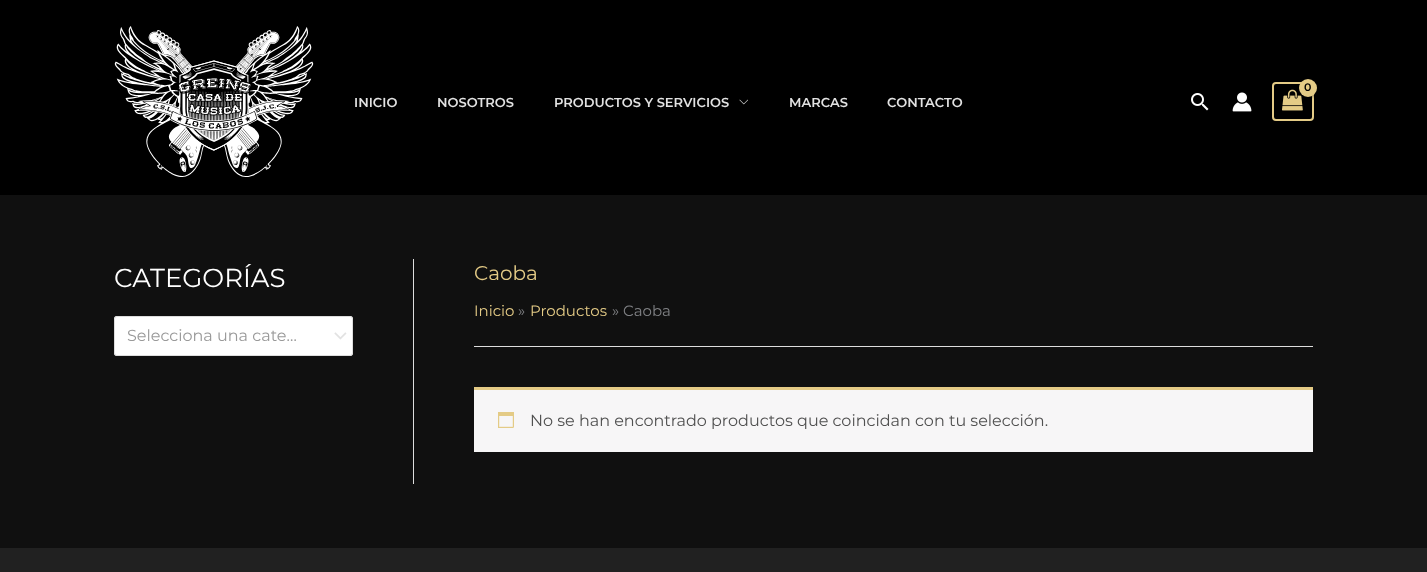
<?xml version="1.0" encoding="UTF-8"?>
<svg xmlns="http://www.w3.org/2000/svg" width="1427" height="572">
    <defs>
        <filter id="blur1" x="-50%" y="-200%" width="200%" height="500%"><feGaussianBlur stdDeviation="1.5"/></filter>
    </defs>
    <rect width="100%" height="100%" fill="#101010"/>
    <rect x="0" y="0" width="1427" height="195" fill="#000000"/>
    <rect x="1273" y="83" width="40" height="37" rx="3" fill="none" stroke="#E4CB86" stroke-width="2"/>
    <image x="1282" y="89" width="21" height="22" href="img_01.png"/>
    <rect x="1300" y="80" width="18" height="18" rx="9" fill="#000000" fill-opacity="0.3" filter="url(#blur1)"/>
    <circle cx="1308" cy="88" r="9" fill="#E4CB86"/>
    <text x="1304" y="91" font-family="Montserrat" font-size="11" font-weight="600" fill="#000000">0</text>
    <image x="1191" y="93" width="18" height="18" href="img_02.png"/>
    <image x="1232" y="92" width="20" height="20" href="img_03.png"/>
    <image x="114" y="26" width="200" height="151" href="img_04.png"/>
    <text x="354" y="107" font-family="Montserrat" font-size="13" font-weight="600" fill="#E2E2E2">INICIO</text>
    <text x="437" y="107" font-family="Montserrat" font-size="13" font-weight="600" fill="#E2E2E2">NOSOTROS</text>
    <text x="554" y="107" font-family="Montserrat" font-size="13" font-weight="600" fill="#E2E2E2">PRODUCTOS Y SERVICIOS</text>
    <image x="739" y="99" width="9" height="6" href="img_05.png"/>
    <text x="789" y="107" font-family="Montserrat" font-size="13" font-weight="600" fill="#E2E2E2">MARCAS</text>
    <text x="887" y="107" font-family="Montserrat" font-size="13" font-weight="600" fill="#E2E2E2">CONTACTO</text>
    <text x="114" y="287" font-family="Montserrat" font-size="26" fill="#FFFFFF">CATEGORÍAS</text>
    <rect x="114" y="316" width="239" height="40" rx="3" fill="#FFFFFF"/>
    <image x="334" y="332" width="13" height="8" href="img_06.png"/>
    <rect x="114.5" y="316.5" width="238" height="39" rx="2.5" fill="none" stroke="#DDDDDD"/>
    <text x="127" y="341" font-family="Montserrat" font-size="16" fill="#999999">Selecciona una cate…</text>
    <rect x="413" y="259" width="1" height="225" fill="#DDDDDD"/>
    <rect x="474" y="346" width="839" height="1" fill="#DDDDDD"/>
    <text x="474" y="280" font-family="Montserrat" font-size="20" fill="#E4CB86">Caoba</text>
    <text x="474" y="316" font-family="Montserrat" font-size="15" fill="#E4CB86">Inicio</text>
    <text x="518" y="316" font-family="Montserrat" font-size="15" fill="#808285">»</text>
    <text x="530" y="316" font-family="Montserrat" font-size="15" fill="#E4CB86">Productos</text>
    <text x="612" y="316" font-family="Montserrat" font-size="15" fill="#808285">»</text>
    <text x="623" y="316" font-family="Montserrat" font-size="15" fill="#808285">Caoba</text>
    <rect x="474" y="390" width="839" height="62" fill="#F7F6F7"/>
    <rect x="474" y="387" width="839" height="3" fill="#E4CB86"/>
    <image x="498" y="412" width="16" height="16" href="img_07.png"/>
    <text x="530" y="426" font-family="Montserrat" font-size="16" fill="#515151">No se han encontrado productos que coincidan con tu selección.</text>
    <rect x="0" y="548" width="1427" height="24" fill="#212121"/>
</svg>
